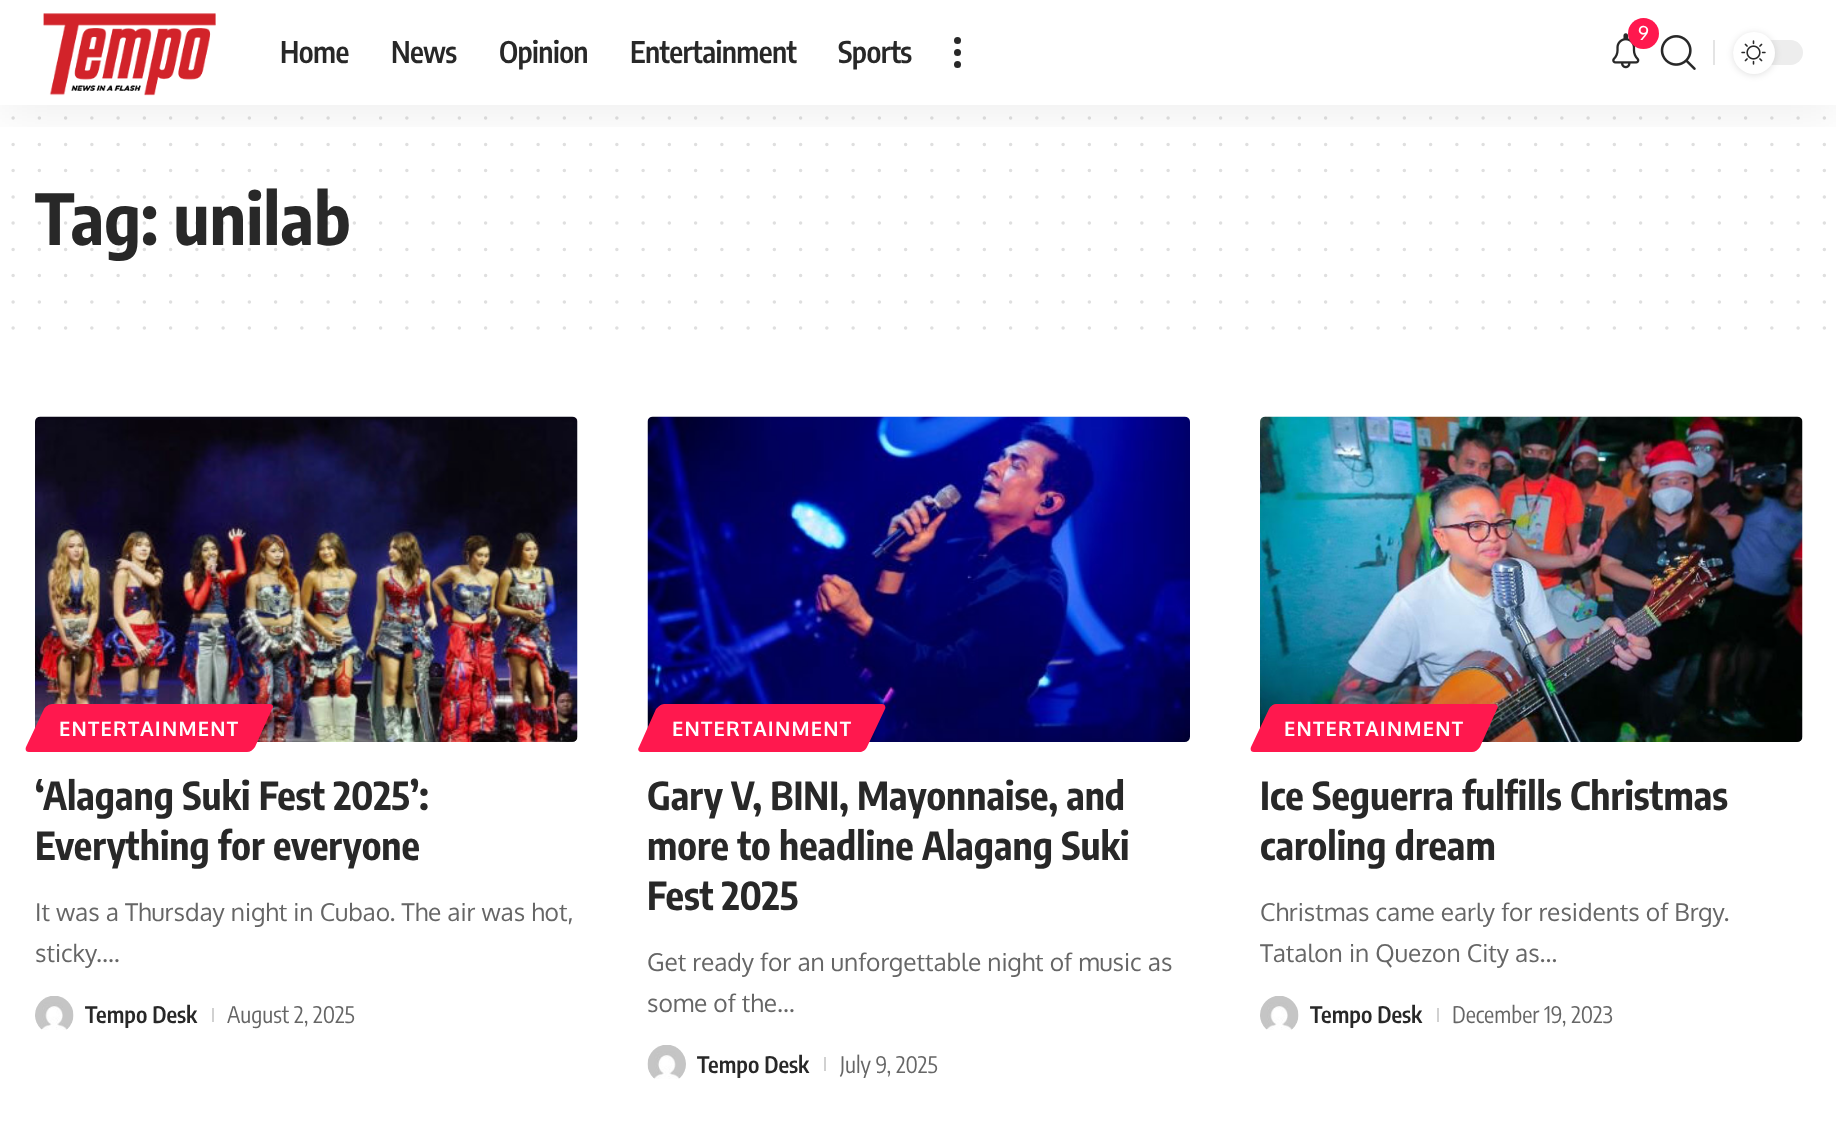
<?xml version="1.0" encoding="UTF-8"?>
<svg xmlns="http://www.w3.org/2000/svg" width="1836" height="1132">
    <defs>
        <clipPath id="clip1"><rect x="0" y="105" width="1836" height="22"/></clipPath>
        <filter id="blur1" x="-50%" y="-200%" width="200%" height="500%"><feGaussianBlur stdDeviation="26"/></filter>
        <filter id="blur2" x="-50%" y="-200%" width="200%" height="500%"><feGaussianBlur stdDeviation="3.5"/></filter>
    </defs>
    <rect width="100%" height="100%" fill="#FFFFFF"/>
    <path d="M 13.1 118.1 H 1824.7" fill="none" stroke="#DFDFDF" stroke-width="3.5" stroke-linecap="round" stroke-dasharray="0 26.25"/>
    <path d="M 13.1 144.4 H 1824.7" fill="none" stroke="#DFDFDF" stroke-width="3.5" stroke-linecap="round" stroke-dasharray="0 26.25"/>
    <path d="M 13.1 170.6 H 1824.7" fill="none" stroke="#DFDFDF" stroke-width="3.5" stroke-linecap="round" stroke-dasharray="0 26.25"/>
    <g clip-path="url(#clip1)">
        <rect x="0" y="7" width="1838" height="105" fill="#000000" fill-opacity="0.07" filter="url(#blur1)"/>
    </g>
    <image x="1612" y="33" width="28" height="36" href="img_01.png"/>
    <circle cx="1643.5" cy="33.5" r="15.5" fill="#FF184E"/>
    <text x="1638" y="40" font-family="Oxygen" font-size="19" fill="#FFFFFF">9</text>
    <rect x="1713" y="40" width="2" height="25" fill="#E4E4E4"/>
    <rect x="1733" y="40" width="70" height="25" rx="12.5" fill="#EDEDED"/>
    <rect x="1733" y="33" width="42" height="42" rx="21" fill="#000000" fill-opacity="0.12" filter="url(#blur2)"/>
    <circle cx="1754" cy="53" r="21" fill="#FFFFFF"/>
    <image x="1741" y="40" width="25" height="25" href="img_02.png"/>
    <image x="1660" y="35" width="36" height="35" href="img_03.png"/>
    <image x="43" y="13" width="173" height="83" href="img_04.png"/>
    <text x="280" y="63" font-family="Encode Sans Condensed" font-size="29.75" font-weight="600" letter-spacing="-0.6" fill="#282828">Home</text>
    <text x="391" y="63" font-family="Encode Sans Condensed" font-size="29.75" font-weight="600" letter-spacing="-0.6" fill="#282828">News</text>
    <text x="499" y="63" font-family="Encode Sans Condensed" font-size="29.75" font-weight="600" letter-spacing="-0.6" fill="#282828">Opinion</text>
    <text x="630" y="63" font-family="Encode Sans Condensed" font-size="29.75" font-weight="600" letter-spacing="-0.6" fill="#282828">Entertainment</text>
    <text x="838" y="63" font-family="Encode Sans Condensed" font-size="29.75" font-weight="600" letter-spacing="-0.6" fill="#282828">Sports</text>
    <circle cx="957.5" cy="40.5" r="3.5" fill="#282828"/>
    <circle cx="957.5" cy="52.5" r="3.5" fill="#282828"/>
    <circle cx="957.5" cy="64.5" r="3.5" fill="#282828"/>
    <text x="35" y="245" font-family="Encode Sans Condensed" font-size="70" font-weight="700" fill="#282828">Tag: unilab</text>
    <path d="M 13.1 196.9 H 1824.7" fill="none" stroke="#282828" stroke-opacity="0.15" stroke-width="3.5" stroke-linecap="round" stroke-dasharray="0 26.25"/>
    <path d="M 13.1 223.1 H 1824.7" fill="none" stroke="#282828" stroke-opacity="0.15" stroke-width="3.5" stroke-linecap="round" stroke-dasharray="0 26.25"/>
    <path d="M 13.1 249.4 H 1824.7" fill="none" stroke="#DFDFDF" stroke-width="3.5" stroke-linecap="round" stroke-dasharray="0 26.25"/>
    <path d="M 13.1 275.6 H 1824.7" fill="none" stroke="#DFDFDF" stroke-width="3.5" stroke-linecap="round" stroke-dasharray="0 26.25"/>
    <path d="M 13.1 301.9 H 1824.7" fill="none" stroke="#DFDFDF" stroke-width="3.5" stroke-linecap="round" stroke-dasharray="0 26.25"/>
    <path d="M 13.1 328.1 H 1824.7" fill="none" stroke="#DFDFDF" stroke-width="3.5" stroke-linecap="round" stroke-dasharray="0 26.25"/>
    <image x="35" y="416" width="543" height="326" href="img_05.png"/>
    <path d="M 52 704 H 270 C 273 704 274 707 272 709 L 255 747 C 253 750 250 752 247 752 H 29 C 26 752 25 750 26 747 L 44 709 C 45 707 49 704 52 704 Z" fill="#FF184E"/>
    <text x="59" y="736" font-family="Oxygen" font-size="20.1" font-weight="700" letter-spacing="1.25" fill="#FFFFFF">ENTERTAINMENT</text>
    <text font-family="Encode Sans Condensed" font-size="38.5" font-weight="700" fill="#282828">
        <tspan x="35" y="810">‘Alagang Suki Fest 2025’:</tspan>
        <tspan x="35" y="860">Everything for everyone</tspan>
    </text>
    <text font-family="Oxygen" font-size="24.5" fill="#666666">
        <tspan x="35" y="921">It was a Thursday night in Cubao. The air was hot,</tspan>
        <tspan x="35" y="962">sticky.…</tspan>
    </text>
    <image x="35" y="996" width="39" height="34" href="img_06.png"/>
    <text x="85" y="1023" font-family="Encode Sans Condensed" font-size="22.75" font-weight="600" fill="#282828">Tempo Desk</text>
    <rect x="212" y="1008" width="2" height="14" fill="#D1D1D1"/>
    <text x="227" y="1023" font-family="Encode Sans Condensed" font-size="22.75" fill="#666666">August 2, 2025</text>
    <image x="647" y="416" width="543" height="326" href="img_07.png"/>
    <path d="M 664 704 H 882 C 885 704 886 707 885 709 L 867 747 C 866 750 862 752 860 752 H 641 C 639 752 637 750 639 747 L 656 709 C 658 707 661 704 664 704 Z" fill="#FF184E"/>
    <text x="672" y="736" font-family="Oxygen" font-size="20.1" font-weight="700" letter-spacing="1.25" fill="#FFFFFF">ENTERTAINMENT</text>
    <text font-family="Encode Sans Condensed" font-size="38.5" font-weight="700" fill="#282828">
        <tspan x="647" y="810">Gary V, BINI, Mayonnaise, and</tspan>
        <tspan x="647" y="860">more to headline Alagang Suki</tspan>
        <tspan x="647" y="910">Fest 2025</tspan>
    </text>
    <text font-family="Oxygen" font-size="24.5" fill="#666666">
        <tspan x="647" y="971">Get ready for an unforgettable night of music as</tspan>
        <tspan x="647" y="1012">some of the…</tspan>
    </text>
    <image x="647" y="1045" width="39" height="34" href="img_08.png"/>
    <text x="697" y="1073" font-family="Encode Sans Condensed" font-size="22.75" font-weight="600" fill="#282828">Tempo Desk</text>
    <rect x="824" y="1057" width="2" height="14" fill="#D1D1D1"/>
    <text x="840" y="1073" font-family="Encode Sans Condensed" font-size="22.75" fill="#666666">July 9, 2025</text>
    <image x="1260" y="416" width="543" height="326" href="img_09.png"/>
    <path d="M 1276 704 H 1494 C 1497 704 1499 707 1497 709 L 1480 747 C 1478 750 1475 752 1472 752 H 1254 C 1251 752 1250 750 1251 747 L 1269 709 C 1270 707 1273 704 1276 704 Z" fill="#FF184E"/>
    <text x="1284" y="736" font-family="Oxygen" font-size="20.1" font-weight="700" letter-spacing="1.25" fill="#FFFFFF">ENTERTAINMENT</text>
    <text font-family="Encode Sans Condensed" font-size="38.5" font-weight="700" fill="#282828">
        <tspan x="1260" y="810">Ice Seguerra fulfills Christmas</tspan>
        <tspan x="1260" y="860">caroling dream</tspan>
    </text>
    <text font-family="Oxygen" font-size="24.5" fill="#666666">
        <tspan x="1260" y="921">Christmas came early for residents of Brgy.</tspan>
        <tspan x="1260" y="962">Tatalon in Quezon City as…</tspan>
    </text>
    <image x="1260" y="996" width="39" height="34" href="img_10.png"/>
    <text x="1310" y="1023" font-family="Encode Sans Condensed" font-size="22.75" font-weight="600" fill="#282828">Tempo Desk</text>
    <rect x="1437" y="1008" width="2" height="14" fill="#D1D1D1"/>
    <text x="1452" y="1023" font-family="Encode Sans Condensed" font-size="22.75" fill="#666666">December 19, 2023</text>
</svg>
